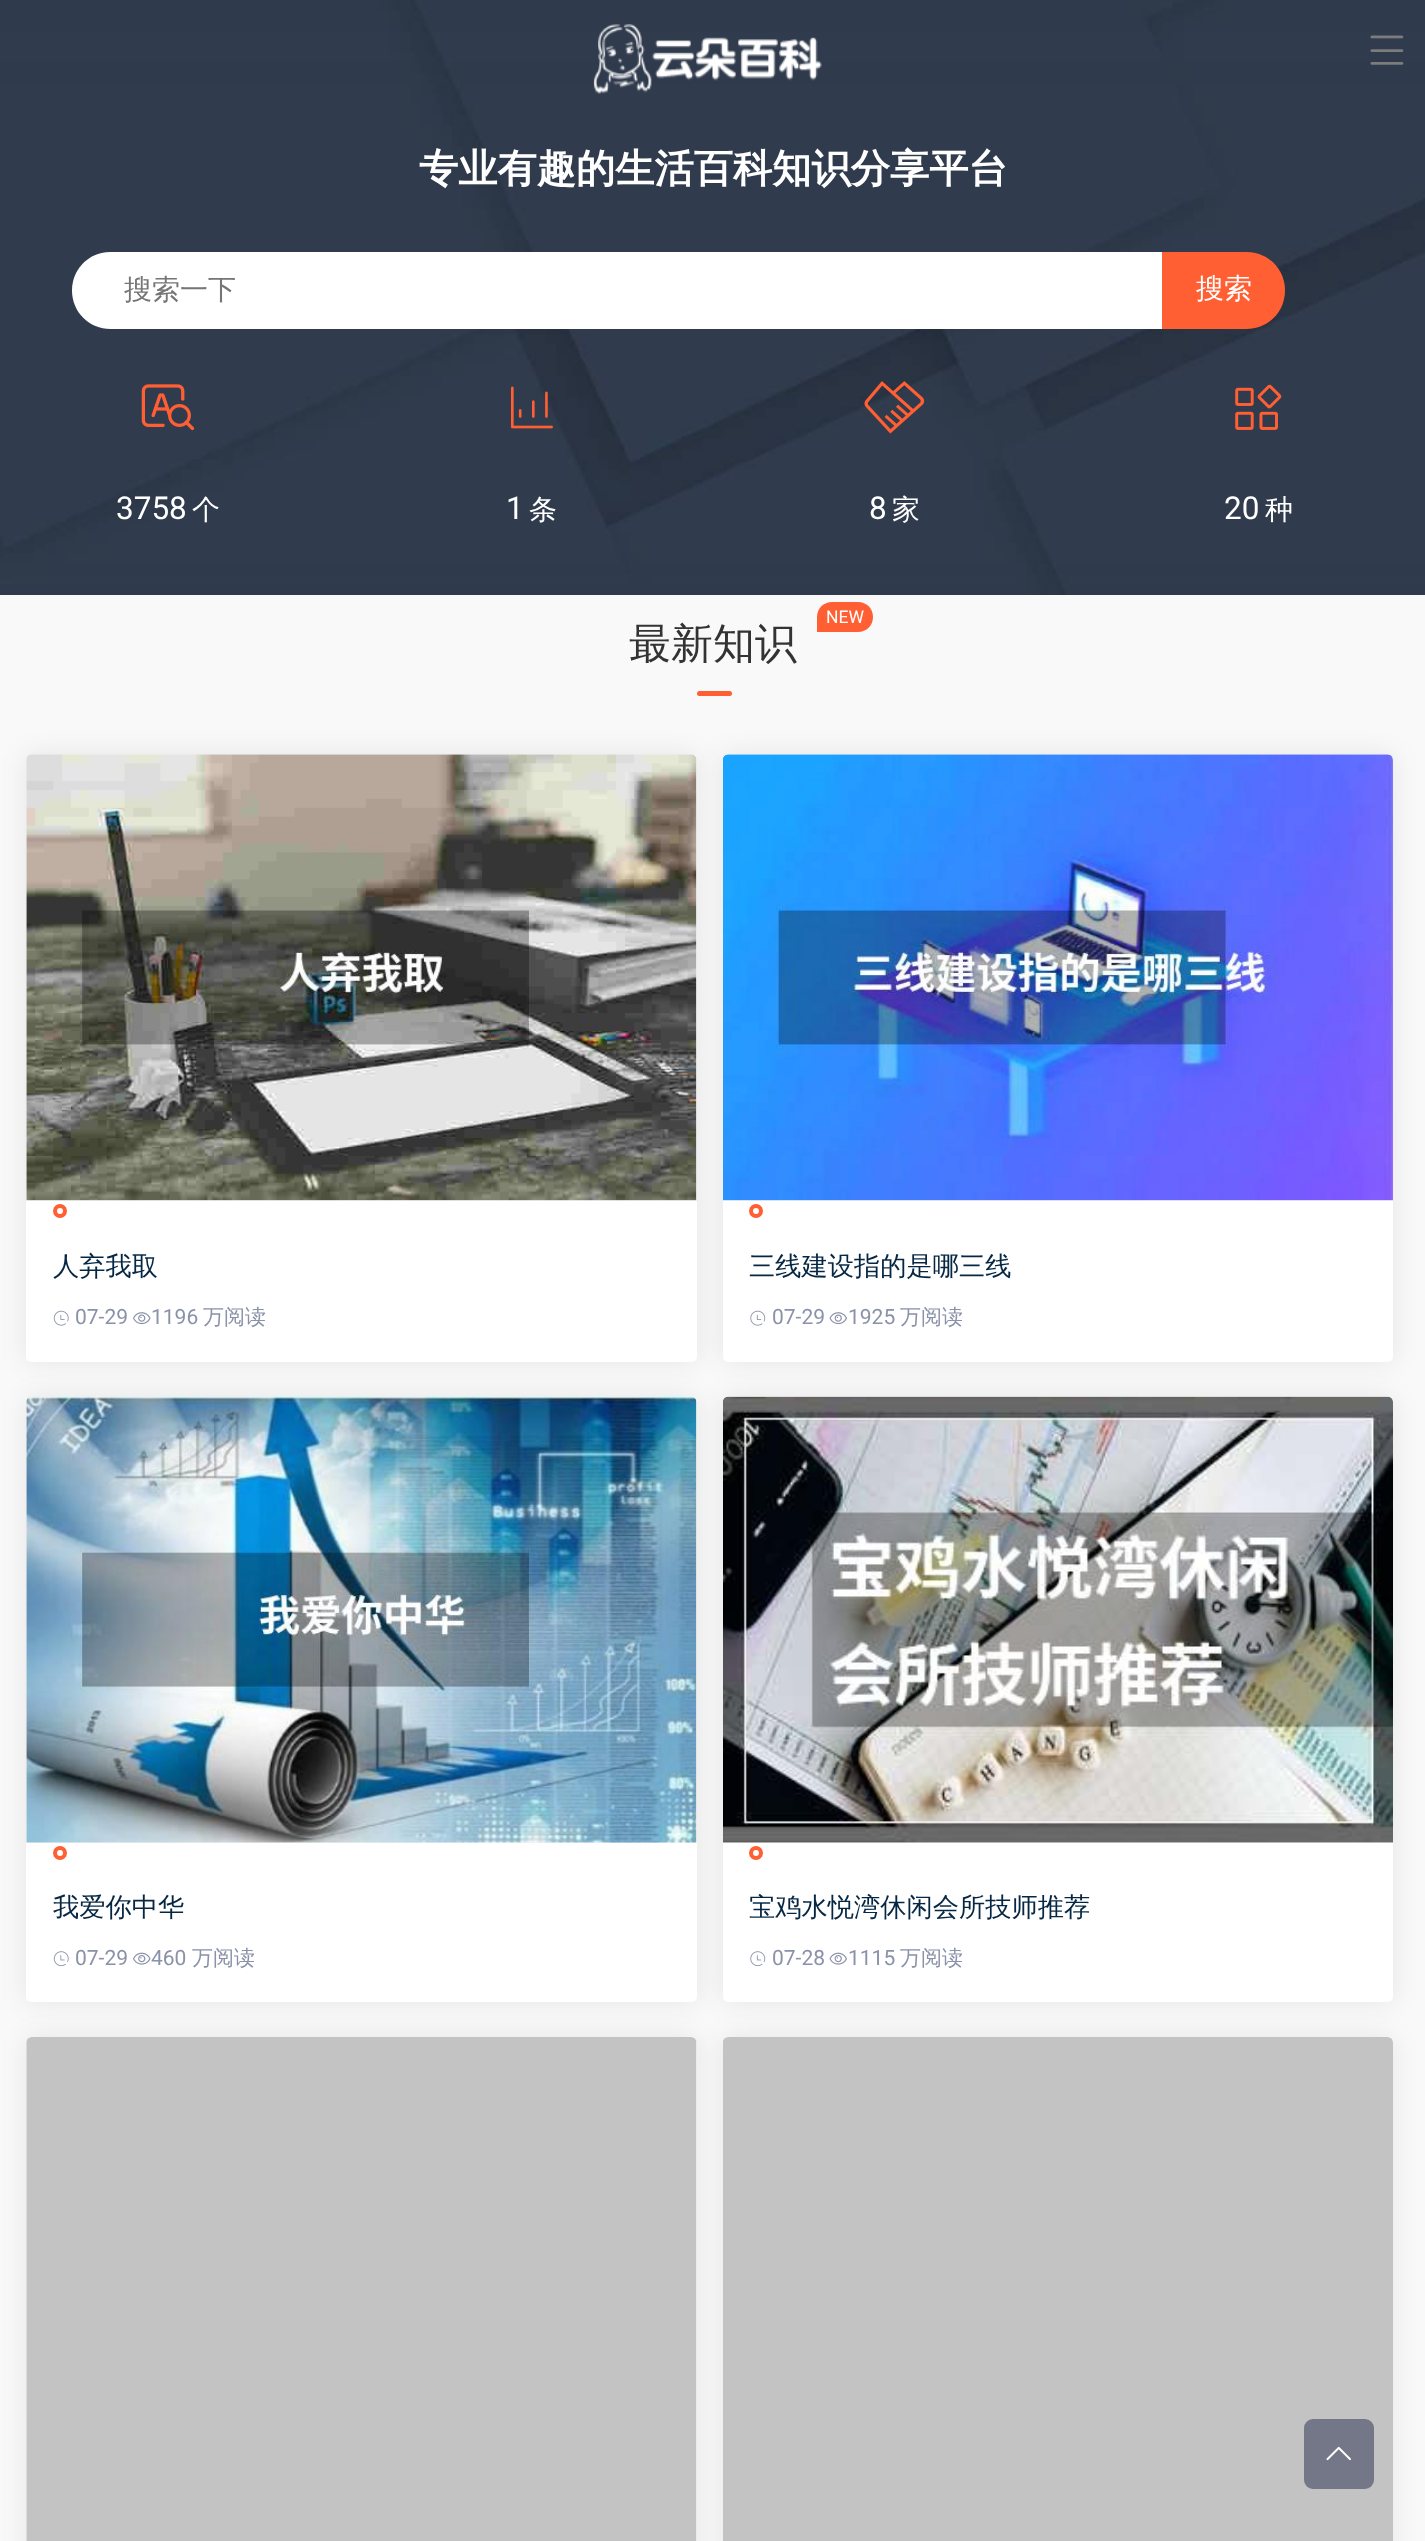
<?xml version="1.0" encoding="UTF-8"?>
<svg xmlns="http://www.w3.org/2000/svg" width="1425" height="2541">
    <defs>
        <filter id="blur1" x="-50%" y="-200%" width="200%" height="500%"><feGaussianBlur stdDeviation="13"/></filter>
    </defs>
    <rect width="100%" height="100%" fill="#F9F9F9"/>
    <image x="0" y="0" width="1425" height="595" href="img_03.png"/>
    <image x="593" y="24" width="229" height="70" href="img_01.png"/>
    <image x="1370" y="35" width="34" height="30" href="img_02.png"/>
    <text x="419" y="182" font-family="WenQuanYi Zen Hei" font-size="39.25" font-weight="700" fill="#FFFFFF">专业有趣的生活百科知识分享平台</text>
    <path d="M 110.5 252 H 1162 V 329 H 110.5 C 89 329 72 312 72 290.5 C 72 269 89 252 110.5 252 Z" fill="#FFFFFF"/>
    <text x="124" y="299" font-family="WenQuanYi Zen Hei" font-size="28" font-weight="500" fill="#757575">搜索一下</text>
    <path d="M 1162 252 H 1246.5 C 1268 252 1285 269 1285 290.5 C 1285 312 1268 329 1246.5 329 H 1162 Z" fill="#FF5F33"/>
    <text x="1196" y="298" font-family="WenQuanYi Zen Hei" font-size="28" font-weight="500" fill="#FFFFFF">搜索</text>
    <image x="141" y="384" width="54" height="47" href="img_04.png"/>
    <text x="116" y="519" font-family="Roboto" font-size="31.5" fill="#FFFFFF">3758</text>
    <text x="192" y="519" font-family="WenQuanYi Zen Hei" font-size="28" font-weight="500" fill="#FFFFFF">个</text>
    <image x="511" y="386" width="42" height="43" href="img_05.png"/>
    <text x="506" y="519" font-family="Roboto" font-size="31.5" fill="#FFFFFF">1</text>
    <text x="529" y="519" font-family="WenQuanYi Zen Hei" font-size="28" font-weight="500" fill="#FFFFFF">条</text>
    <image x="864" y="381" width="61" height="53" href="img_06.png"/>
    <text x="869" y="519" font-family="Roboto" font-size="31.5" fill="#FFFFFF">8</text>
    <text x="892" y="519" font-family="WenQuanYi Zen Hei" font-size="28" font-weight="500" fill="#FFFFFF">家</text>
    <image x="1235" y="384" width="47" height="46" href="img_07.png"/>
    <text x="1224" y="519" font-family="Roboto" font-size="31.5" fill="#FFFFFF">20</text>
    <text x="1265" y="519" font-family="WenQuanYi Zen Hei" font-size="28" font-weight="500" fill="#FFFFFF">种</text>
    <path d="M 832 602 H 858 C 866.5 602 873 608.5 873 617 C 873 625.5 866.5 632 858 632 H 817 V 617 C 817 608.5 823.5 602 832 602 Z" fill="#FF5F33"/>
    <text x="826" y="623" font-family="Roboto" font-size="17.5" fill="#FFFFFF">NEW</text>
    <text x="629" y="658" font-family="WenQuanYi Zen Hei" font-size="42" font-weight="500" fill="#333333">最新知识</text>
    <rect x="697" y="691" width="35" height="5" rx="2.5" fill="#FF5F33"/>
    <rect x="26" y="754" width="671" height="608" rx="5" fill="#000000" fill-opacity="0.08" filter="url(#blur1)"/>
    <rect x="26" y="754" width="671" height="608" rx="5" fill="#FFFFFF"/>
    <path d="M 31 754 H 692 C 695 754 697 756 697 759 V 1201 H 26 V 759 C 26 756 28 754 31 754 Z" fill="#F0F0F0"/>
    <image x="26" y="754" width="671" height="447" href="img_08.png"/>
    <circle cx="60" cy="1211" r="5" fill="none" stroke="#FF5F33" stroke-width="4"/>
    <text x="53" y="1275" font-family="WenQuanYi Zen Hei" font-size="26.25" font-weight="500" fill="#062743">人弃我取</text>
    <image x="53" y="1310" width="16" height="16" href="img_09.png"/>
    <text x="75" y="1324" font-family="Roboto" font-size="21" fill="#8A92A9">07-29</text>
    <image x="133" y="1312" width="18" height="13" href="img_10.png"/>
    <text x="151" y="1324" font-family="Roboto" font-size="21" fill="#8A92A9">1196</text>
    <text x="203" y="1324" font-family="WenQuanYi Zen Hei" font-size="21" font-weight="500" fill="#8A92A9">万阅读</text>
    <rect x="723" y="754" width="670" height="608" rx="5" fill="#000000" fill-opacity="0.08" filter="url(#blur1)"/>
    <rect x="723" y="754" width="670" height="608" rx="5" fill="#FFFFFF"/>
    <path d="M 728 754 H 1388 C 1391 754 1393 756 1393 759 V 1201 H 723 V 759 C 723 756 725 754 728 754 Z" fill="#F0F0F0"/>
    <image x="723" y="754" width="670" height="447" href="img_11.png"/>
    <circle cx="756" cy="1211" r="5" fill="none" stroke="#FF5F33" stroke-width="4"/>
    <text x="749" y="1275" font-family="WenQuanYi Zen Hei" font-size="26.25" font-weight="500" fill="#062743">三线建设指的是哪三线</text>
    <image x="750" y="1310" width="16" height="16" href="img_12.png"/>
    <text x="772" y="1324" font-family="Roboto" font-size="21" fill="#8A92A9">07-29</text>
    <image x="829" y="1312" width="18" height="13" href="img_13.png"/>
    <text x="848" y="1324" font-family="Roboto" font-size="21" fill="#8A92A9">1925</text>
    <text x="900" y="1324" font-family="WenQuanYi Zen Hei" font-size="21" font-weight="500" fill="#8A92A9">万阅读</text>
    <rect x="26" y="1397" width="671" height="605" rx="5" fill="#000000" fill-opacity="0.08" filter="url(#blur1)"/>
    <rect x="26" y="1397" width="671" height="605" rx="5" fill="#FFFFFF"/>
    <path d="M 31 1397 H 692 C 695 1397 697 1399 697 1402 V 1843 H 26 V 1402 C 26 1399 28 1397 31 1397 Z" fill="#F0F0F0"/>
    <image x="26" y="1396" width="671" height="447" href="img_14.png"/>
    <circle cx="60" cy="1853" r="5" fill="none" stroke="#FF5F33" stroke-width="4"/>
    <text x="53" y="1916" font-family="WenQuanYi Zen Hei" font-size="26.25" font-weight="500" fill="#062743">我爱你中华</text>
    <image x="53" y="1951" width="16" height="16" href="img_15.png"/>
    <text x="75" y="1965" font-family="Roboto" font-size="21" fill="#8A92A9">07-29</text>
    <image x="133" y="1952" width="18" height="13" href="img_16.png"/>
    <text x="151" y="1965" font-family="Roboto" font-size="21" fill="#8A92A9">460</text>
    <text x="192" y="1965" font-family="WenQuanYi Zen Hei" font-size="21" font-weight="500" fill="#8A92A9">万阅读</text>
    <rect x="723" y="1397" width="670" height="605" rx="5" fill="#000000" fill-opacity="0.08" filter="url(#blur1)"/>
    <rect x="723" y="1397" width="670" height="605" rx="5" fill="#FFFFFF"/>
    <path d="M 728 1397 H 1388 C 1391 1397 1393 1399 1393 1402 V 1843 H 723 V 1402 C 723 1399 725 1397 728 1397 Z" fill="#F0F0F0"/>
    <image x="723" y="1396" width="670" height="447" href="img_17.png"/>
    <circle cx="756" cy="1853" r="5" fill="none" stroke="#FF5F33" stroke-width="4"/>
    <text x="749" y="1916" font-family="WenQuanYi Zen Hei" font-size="26.25" font-weight="500" fill="#062743">宝鸡水悦湾休闲会所技师推荐</text>
    <image x="750" y="1951" width="16" height="16" href="img_18.png"/>
    <text x="772" y="1965" font-family="Roboto" font-size="21" fill="#8A92A9">07-28</text>
    <image x="829" y="1952" width="18" height="13" href="img_19.png"/>
    <text x="848" y="1965" font-family="Roboto" font-size="21" fill="#8A92A9">1115</text>
    <text x="900" y="1965" font-family="WenQuanYi Zen Hei" font-size="21" font-weight="500" fill="#8A92A9">万阅读</text>
    <rect x="26" y="2037" width="671" height="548" rx="5" fill="#000000" fill-opacity="0.08" filter="url(#blur1)"/>
    <path d="M 31 2037 H 692 C 695 2037 697 2039 697 2042 V 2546 H 26 V 2042 C 26 2039 28 2037 31 2037 Z" fill="#F0F0F0"/>
    <image x="26" y="2037" width="671" height="504" href="img_20.png"/>
    <rect x="723" y="2037" width="670" height="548" rx="5" fill="#000000" fill-opacity="0.08" filter="url(#blur1)"/>
    <path d="M 728 2037 H 1388 C 1391 2037 1393 2039 1393 2042 V 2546 H 723 V 2042 C 723 2039 725 2037 728 2037 Z" fill="#F0F0F0"/>
    <image x="723" y="2037" width="670" height="504" href="img_21.png"/>
    <rect x="1304" y="2419" width="70" height="70" rx="9" fill="#747787"/>
    <image x="1326" y="2446" width="25" height="15" href="img_22.png"/>
</svg>
